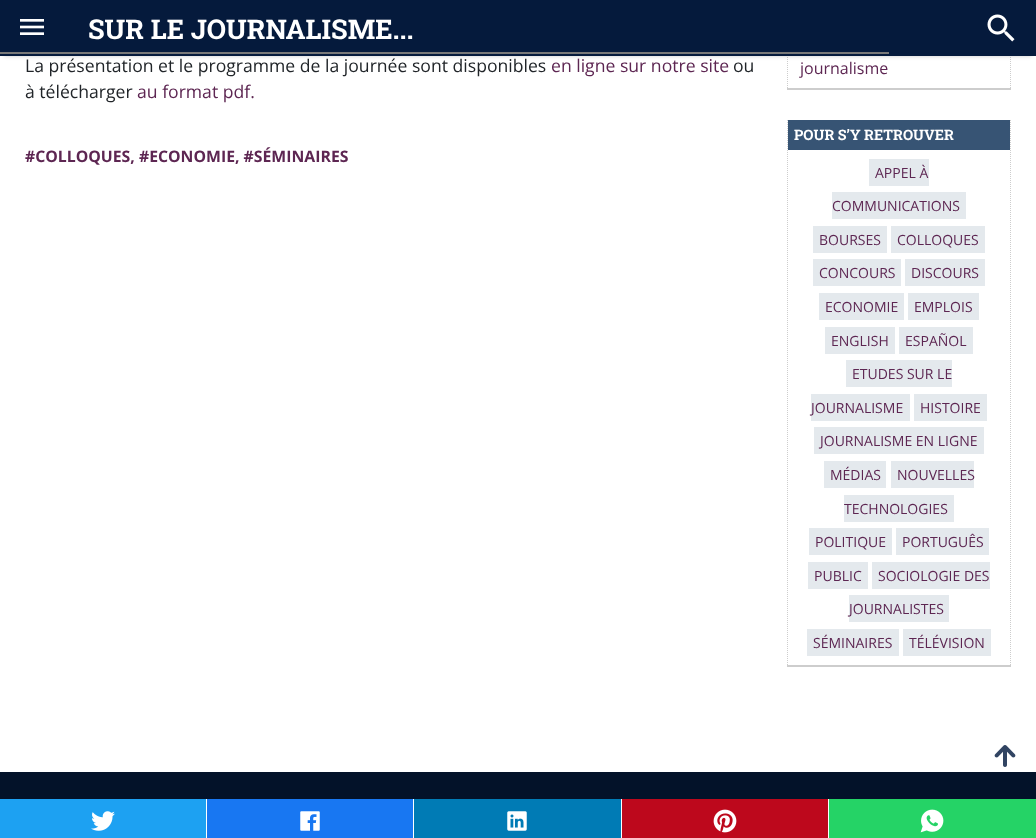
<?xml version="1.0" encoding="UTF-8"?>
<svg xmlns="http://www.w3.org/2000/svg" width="1036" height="838">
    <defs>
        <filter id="blur1" x="-50%" y="-200%" width="200%" height="500%"><feGaussianBlur stdDeviation="2"/></filter>
    </defs>
    <rect width="100%" height="100%" fill="#FFFFFF"/>
    <path d="M 1010.5 -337 V 90" fill="none" stroke="#CDCDCD" stroke-dasharray="1 1"/>
    <rect x="787" y="88" width="224" height="2" fill="#CDCDCD"/>
    <path d="M 787.5 -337 V 90" fill="none" stroke="#CDCDCD" stroke-dasharray="1 1"/>
    <rect x="4" y="8" width="1028" height="48" fill="#000000" fill-opacity="0.2" filter="url(#blur1)"/>
    <rect x="0" y="0" width="1036" height="56" fill="#051A3C"/>
    <image x="20" y="19" width="24" height="16" href="img_01.png"/>
    <text x="88" y="39" font-family="Roboto Slab" font-size="27.25" font-weight="700" fill="#FFFFFF">SUR LE JOURNALISME...</text>
    <image x="987" y="14" width="28" height="28" href="img_02.png"/>
    <rect x="0" y="52" width="889" height="2" fill="#787878"/>
    <text x="25" y="72" font-family="Open Sans" font-size="17.6" fill="#212529">La présentation et le programme de la journée sont disponibles</text>
    <text x="551" y="72" font-family="Open Sans" font-size="17.6" fill="#5D2652">en ligne sur notre site</text>
    <text x="733" y="72" font-family="Open Sans" font-size="17.6" fill="#212529">ou</text>
    <text x="25" y="98" font-family="Open Sans" font-size="17.6" fill="#212529">à télécharger</text>
    <text x="137" y="98" font-family="Open Sans" font-size="17.6" fill="#5D2652">au format pdf.</text>
    <text x="25" y="162" font-family="Open Sans" font-size="15.8" font-weight="700" fill="#5D2652">#COLLOQUES, #ECONOMIE, #SÉMINAIRES</text>
    <text x="800" y="74" font-family="Open Sans" font-size="16" fill="#5D2652">journalisme</text>
    <path d="M 1010.5 120 V 667" fill="none" stroke="#CDCDCD" stroke-dasharray="1 1"/>
    <rect x="787" y="665" width="224" height="2" fill="#CDCDCD"/>
    <path d="M 787.5 120 V 667" fill="none" stroke="#CDCDCD" stroke-dasharray="1 1"/>
    <rect x="788" y="120" width="222" height="30" fill="#375474"/>
    <text x="794" y="140" font-family="Roboto Slab" font-size="14.4" font-weight="700" fill="#FFFFFF">POUR S’Y RETROUVER</text>
    <rect x="869" y="159" width="60" height="27" fill="#E4E9ED"/>
    <text x="875" y="178" font-family="Open Sans" font-size="14" fill="#5D2652">APPEL À</text>
    <rect x="832" y="192" width="134" height="27" fill="#E4E9ED"/>
    <text x="832" y="211" font-family="Open Sans" font-size="14" fill="#5D2652">COMMUNICATIONS</text>
    <rect x="813" y="226" width="74" height="27" fill="#E4E9ED"/>
    <text x="819" y="245" font-family="Open Sans" font-size="14" fill="#5D2652">BOURSES</text>
    <rect x="891" y="226" width="94" height="27" fill="#E4E9ED"/>
    <text x="897" y="245" font-family="Open Sans" font-size="14" fill="#5D2652">COLLOQUES</text>
    <rect x="813" y="259" width="88" height="27" fill="#E4E9ED"/>
    <text x="819" y="278" font-family="Open Sans" font-size="14" fill="#5D2652">CONCOURS</text>
    <rect x="905" y="259" width="80" height="27" fill="#E4E9ED"/>
    <text x="911" y="278" font-family="Open Sans" font-size="14" fill="#5D2652">DISCOURS</text>
    <rect x="819" y="293" width="85" height="27" fill="#E4E9ED"/>
    <text x="825" y="312" font-family="Open Sans" font-size="14" fill="#5D2652">ECONOMIE</text>
    <rect x="908" y="293" width="71" height="27" fill="#E4E9ED"/>
    <text x="914" y="312" font-family="Open Sans" font-size="14" fill="#5D2652">EMPLOIS</text>
    <rect x="825" y="327" width="70" height="27" fill="#E4E9ED"/>
    <text x="831" y="346" font-family="Open Sans" font-size="14" fill="#5D2652">ENGLISH</text>
    <rect x="899" y="327" width="74" height="27" fill="#E4E9ED"/>
    <text x="905" y="346" font-family="Open Sans" font-size="14" fill="#5D2652">ESPAÑOL</text>
    <rect x="846" y="360" width="106" height="27" fill="#E4E9ED"/>
    <text x="852" y="379" font-family="Open Sans" font-size="14" fill="#5D2652">ETUDES SUR LE</text>
    <rect x="811" y="394" width="99" height="27" fill="#E4E9ED"/>
    <text x="811" y="413" font-family="Open Sans" font-size="14" fill="#5D2652">JOURNALISME</text>
    <rect x="914" y="394" width="73" height="27" fill="#E4E9ED"/>
    <text x="920" y="413" font-family="Open Sans" font-size="14" fill="#5D2652">HISTOIRE</text>
    <rect x="814" y="427" width="170" height="27" fill="#E4E9ED"/>
    <text x="820" y="446" font-family="Open Sans" font-size="14" fill="#5D2652">JOURNALISME EN LIGNE</text>
    <rect x="824" y="461" width="62" height="27" fill="#E4E9ED"/>
    <text x="830" y="480" font-family="Open Sans" font-size="14" fill="#5D2652">MÉDIAS</text>
    <rect x="891" y="461" width="83" height="27" fill="#E4E9ED"/>
    <text x="897" y="480" font-family="Open Sans" font-size="14" fill="#5D2652">NOUVELLES</text>
    <rect x="844" y="495" width="110" height="27" fill="#E4E9ED"/>
    <text x="844" y="514" font-family="Open Sans" font-size="14" fill="#5D2652">TECHNOLOGIES</text>
    <rect x="809" y="528" width="83" height="27" fill="#E4E9ED"/>
    <text x="815" y="547" font-family="Open Sans" font-size="14" fill="#5D2652">POLITIQUE</text>
    <rect x="896" y="528" width="93" height="27" fill="#E4E9ED"/>
    <text x="902" y="547" font-family="Open Sans" font-size="14" fill="#5D2652">PORTUGUÊS</text>
    <rect x="808" y="562" width="60" height="27" fill="#E4E9ED"/>
    <text x="814" y="581" font-family="Open Sans" font-size="14" fill="#5D2652">PUBLIC</text>
    <rect x="872" y="562" width="118" height="27" fill="#E4E9ED"/>
    <text x="878" y="581" font-family="Open Sans" font-size="14" fill="#5D2652">SOCIOLOGIE DES</text>
    <rect x="849" y="595" width="100" height="27" fill="#E4E9ED"/>
    <text x="849" y="614" font-family="Open Sans" font-size="14" fill="#5D2652">JOURNALISTES</text>
    <rect x="807" y="629" width="92" height="27" fill="#E4E9ED"/>
    <text x="813" y="648" font-family="Open Sans" font-size="14" fill="#5D2652">SÉMINAIRES</text>
    <rect x="903" y="629" width="88" height="27" fill="#E4E9ED"/>
    <text x="909" y="648" font-family="Open Sans" font-size="14" fill="#5D2652">TÉLÉVISION</text>
    <image x="994" y="745" width="22" height="22" href="img_03.png"/>
    <rect x="0" y="772" width="1036" height="27" fill="#031229"/>
    <rect x="0" y="799" width="206" height="39" fill="#1DA1F2"/>
    <image x="91" y="811" width="24" height="20" href="img_04.png"/>
    <rect x="207" y="799" width="206" height="39" fill="#1877F2"/>
    <image x="300" y="811" width="20" height="20" href="img_05.png"/>
    <rect x="414" y="799" width="207" height="39" fill="#007BB5"/>
    <image x="507" y="811" width="20" height="20" href="img_06.png"/>
    <rect x="622" y="799" width="206" height="39" fill="#BD081C"/>
    <image x="713" y="809" width="24" height="24" href="img_07.png"/>
    <rect x="829" y="799" width="207" height="39" fill="#25D366"/>
    <image x="920" y="809" width="24" height="24" href="img_08.png"/>
</svg>
